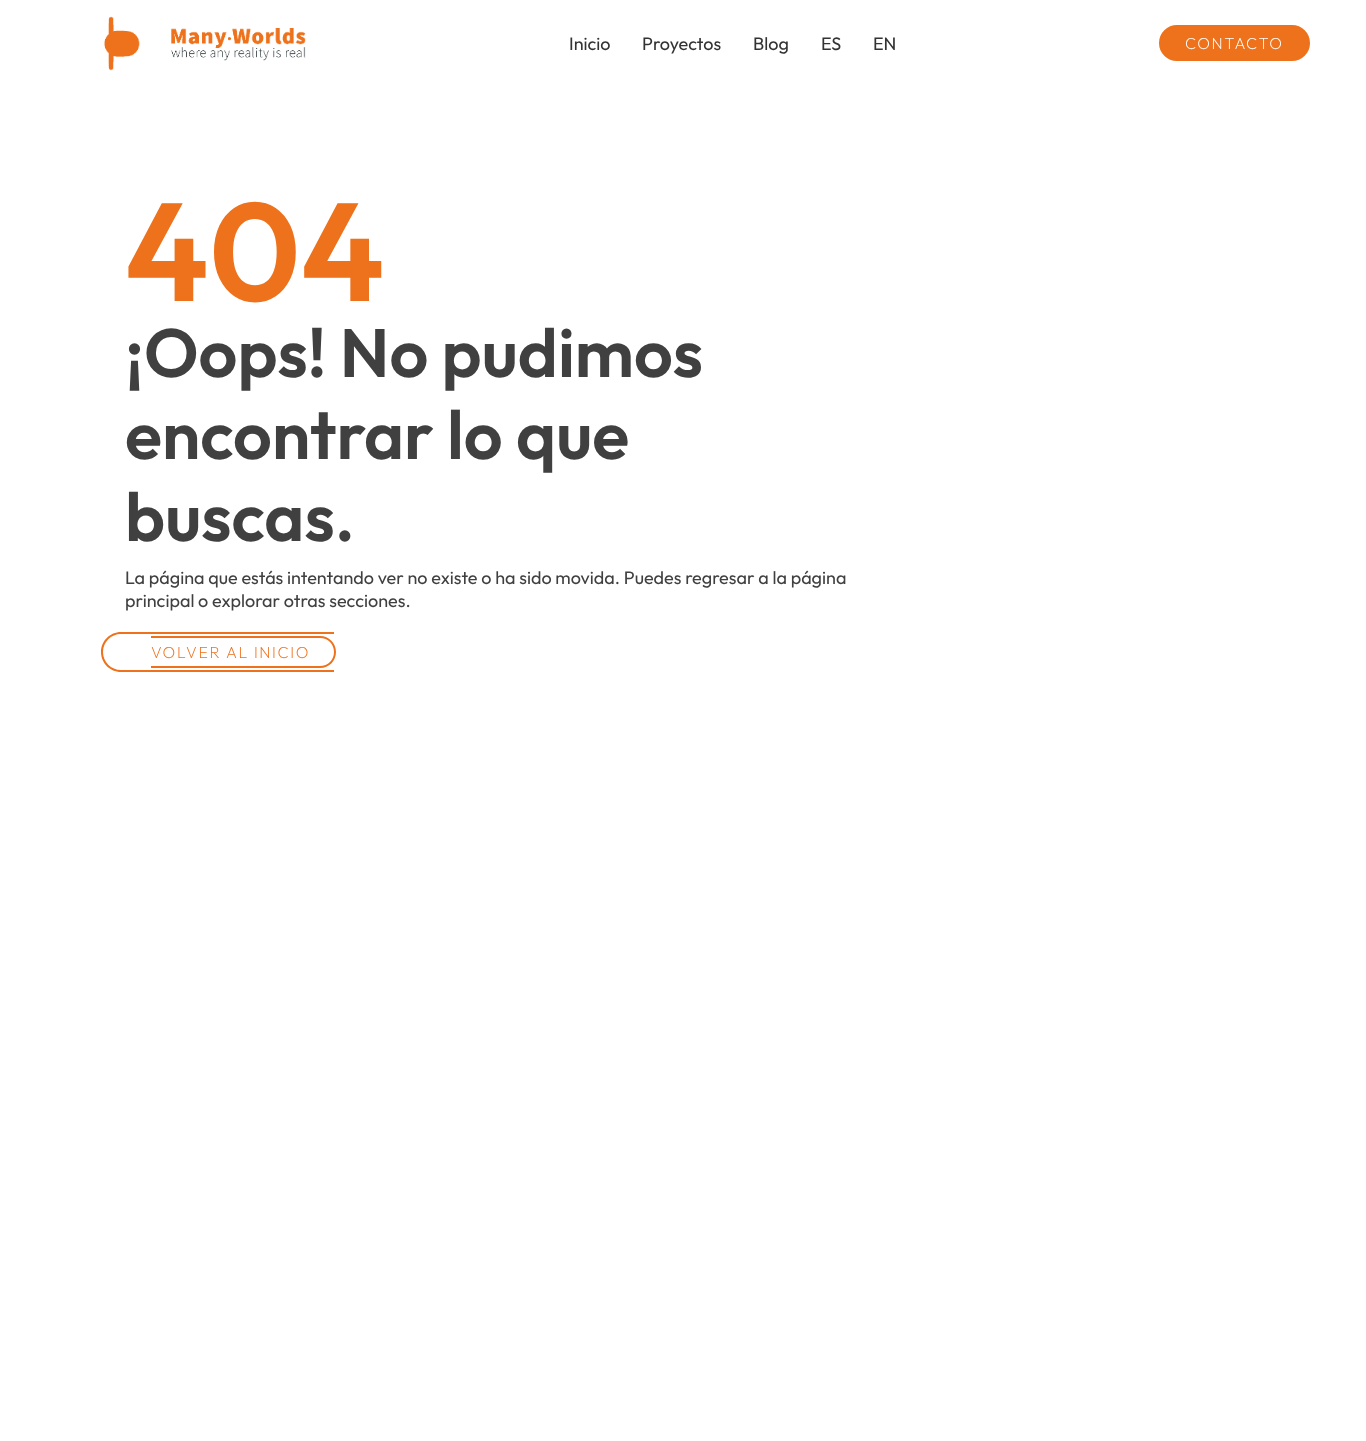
<?xml version="1.0" encoding="UTF-8"?>
<svg xmlns="http://www.w3.org/2000/svg" width="1366" height="1441">
    <rect width="100%" height="100%" fill="#FFFFFF"/>
    <image x="104" y="16" width="202" height="55" href="img_01.png"/>
    <text x="569" y="50" font-family="Outfit" font-size="18" fill="#333333">Inicio</text>
    <text x="642" y="50" font-family="Outfit" font-size="18" fill="#333333">Proyectos</text>
    <text x="753" y="50" font-family="Outfit" font-size="18" fill="#333333">Blog</text>
    <text x="821" y="50" font-family="Outfit" font-size="18" fill="#333333">ES</text>
    <text x="873" y="50" font-family="Outfit" font-size="18" fill="#333333">EN</text>
    <rect x="1160" y="26" width="149" height="34" rx="17" fill="#EE711B" stroke="#EE711B" stroke-width="2"/>
    <text x="1185" y="49" font-family="Outfit" font-size="16" font-weight="200" letter-spacing="1.6" fill="#FFFFFF">CONTACTO</text>
    <text x="125" y="301" font-family="Outfit" font-size="139" font-weight="600" fill="#EE711B">404</text>
    <text font-family="Outfit" font-size="68.25" font-weight="600" fill="#404040">
        <tspan x="125" y="377">¡Oops! No pudimos</tspan>
        <tspan x="125" y="459">encontrar lo que</tspan>
        <tspan x="125" y="541">buscas.</tspan>
    </text>
    <text font-family="Outfit" font-size="18" fill="#404040">
        <tspan x="125" y="584">La página que estás intentando ver no existe o ha sido movida. Puedes regresar a la página</tspan>
        <tspan x="125" y="607">principal o explorar otras secciones.</tspan>
    </text>
    <path d="M 121 632 H 334 V 672 H 121 C 110 672 101 663 101 652 C 101 641 110 632 121 632 Z M 121 634 H 334 V 670 H 121 C 111 670 103 662 103 652 C 103 642 111 634 121 634 Z" fill="#EE711B" fill-rule="evenodd"/>
    <path d="M 151 636 H 320 C 329 636 336 643 336 652 C 336 661 329 668 320 668 H 151 Z M 151 638 H 320 C 328 638 334 644 334 652 C 334 660 328 666 320 666 H 151 Z" fill="#EE711B" fill-rule="evenodd"/>
    <text x="151" y="658" font-family="Outfit" font-size="16" font-weight="200" letter-spacing="1.6" fill="#EE711B">VOLVER AL INICIO</text>
</svg>
